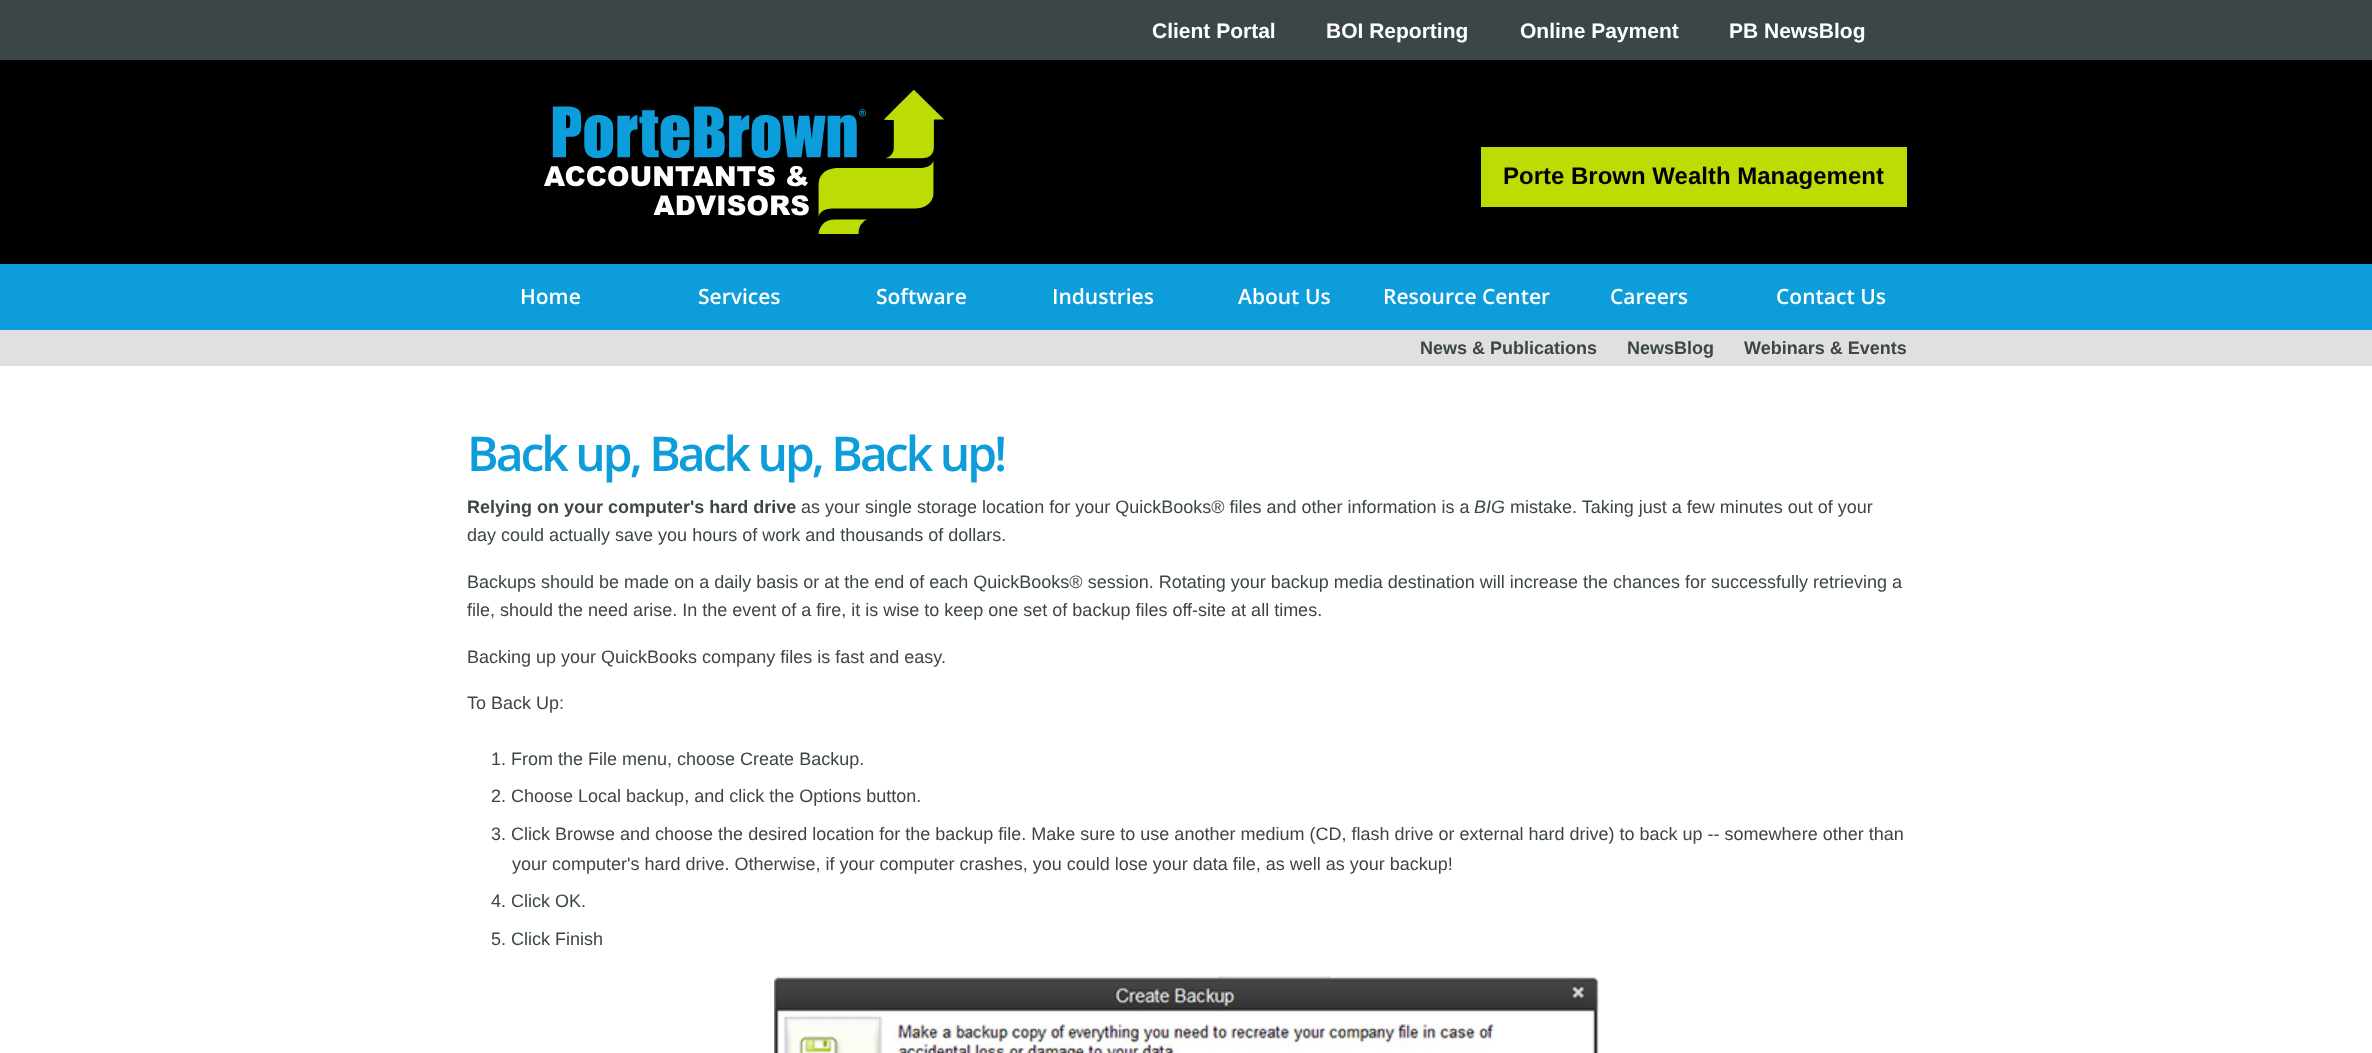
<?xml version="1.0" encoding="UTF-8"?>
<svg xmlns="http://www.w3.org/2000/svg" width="2372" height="1053">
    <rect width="100%" height="100%" fill="#FFFFFF"/>
    <rect x="0" y="0" width="2372" height="60" fill="#3C4648"/>
    <text x="1152" y="38" font-family="Liberation Sans" font-size="21" font-weight="700" fill="#FFFFFF">Client Portal</text>
    <text x="1326" y="38" font-family="Liberation Sans" font-size="21" font-weight="700" fill="#FFFFFF">BOI Reporting</text>
    <text x="1520" y="38" font-family="Liberation Sans" font-size="21" font-weight="700" fill="#FFFFFF">Online Payment</text>
    <text x="1729" y="38" font-family="Liberation Sans" font-size="21" font-weight="700" fill="#FFFFFF">PB NewsBlog</text>
    <rect x="0" y="60" width="2372" height="204" fill="#000000"/>
    <image x="544" y="90" width="400" height="144" href="img_01.png"/>
    <rect x="1481" y="147" width="426" height="60" fill="#BDDC04"/>
    <text x="1503" y="184" font-family="Liberation Sans" font-size="24" font-weight="700" fill="#000000">Porte Brown Wealth Management</text>
    <rect x="0" y="264" width="2372" height="66" fill="#0D9DDB"/>
    <text x="520" y="304" font-family="Open Sans" font-size="21" font-weight="600" fill="#FFFFFF">Home</text>
    <text x="698" y="304" font-family="Open Sans" font-size="21" font-weight="600" fill="#FFFFFF">Services</text>
    <text x="876" y="304" font-family="Open Sans" font-size="21" font-weight="600" fill="#FFFFFF">Software</text>
    <text x="1052" y="304" font-family="Open Sans" font-size="21" font-weight="600" fill="#FFFFFF">Industries</text>
    <text x="1238" y="304" font-family="Open Sans" font-size="21" font-weight="600" fill="#FFFFFF">About Us</text>
    <text x="1383" y="304" font-family="Open Sans" font-size="21" font-weight="600" fill="#FFFFFF">Resource Center</text>
    <text x="1610" y="304" font-family="Open Sans" font-size="21" font-weight="600" fill="#FFFFFF">Careers</text>
    <text x="1776" y="304" font-family="Open Sans" font-size="21" font-weight="600" fill="#FFFFFF">Contact Us</text>
    <rect x="0" y="330" width="2372" height="36" fill="#E0E0E0"/>
    <text x="1420" y="354" font-family="Liberation Sans" font-size="18" font-weight="700" fill="#3C4648">News &amp; Publications</text>
    <text x="1627" y="354" font-family="Liberation Sans" font-size="18" font-weight="700" fill="#3C4648">NewsBlog</text>
    <text x="1744" y="354" font-family="Liberation Sans" font-size="18" font-weight="700" fill="#3C4648">Webinars &amp; Events</text>
    <text x="467" y="471" font-family="Open Sans" font-size="48" font-weight="600" letter-spacing="-3" fill="#0D9DDB">Back up, Back up, Back up!</text>
    <text x="467" y="513" font-family="Liberation Sans" font-size="18" font-weight="700" fill="#3C4648">Relying on your computer's hard drive</text>
    <text x="801" y="513" font-family="Liberation Sans" font-size="18" fill="#3C4648">as your single storage location for your QuickBooks® files and other information is a</text>
    <text x="1474" y="513" font-family="Liberation Sans" font-size="18" font-style="italic" fill="#3C4648">BIG</text>
    <text x="1510" y="513" font-family="Liberation Sans" font-size="18" fill="#3C4648">mistake. Taking just a few minutes out of your</text>
    <text x="467" y="541" font-family="Liberation Sans" font-size="18" fill="#3C4648">day could actually save you hours of work and thousands of dollars.</text>
    <text font-family="Liberation Sans" font-size="18" fill="#3C4648">
        <tspan x="467" y="588">Backups should be made on a daily basis or at the end of each QuickBooks® session. Rotating your backup media destination will increase the chances for successfully retrieving a</tspan>
        <tspan x="467" y="616">file, should the need arise. In the event of a fire, it is wise to keep one set of backup files off-site at all times.</tspan>
    </text>
    <text x="467" y="663" font-family="Liberation Sans" font-size="18" fill="#3C4648">Backing up your QuickBooks company files is fast and easy.</text>
    <text x="467" y="709" font-family="Liberation Sans" font-size="18" fill="#3C4648">To Back Up:</text>
    <text x="491" y="765" font-family="Liberation Sans" font-size="18" fill="#3C4648">1. From the File menu, choose Create Backup.</text>
    <text x="491" y="802" font-family="Liberation Sans" font-size="18" fill="#3C4648">2. Choose Local backup, and click the Options button.</text>
    <text x="491" y="840" font-family="Liberation Sans" font-size="18" fill="#3C4648">3. Click Browse and choose the desired location for the backup file. Make sure to use another medium (CD, flash drive or external hard drive) to back up -- somewhere other than</text>
    <text x="512" y="870" font-family="Liberation Sans" font-size="18" fill="#3C4648">your computer's hard drive. Otherwise, if your computer crashes, you could lose your data file, as well as your backup!</text>
    <text x="491" y="907" font-family="Liberation Sans" font-size="18" fill="#3C4648">4. Click OK.</text>
    <text x="491" y="945" font-family="Liberation Sans" font-size="18" fill="#3C4648">5. Click Finish</text>
    <image x="774" y="976" width="825" height="77" href="img_02.png"/>
</svg>
